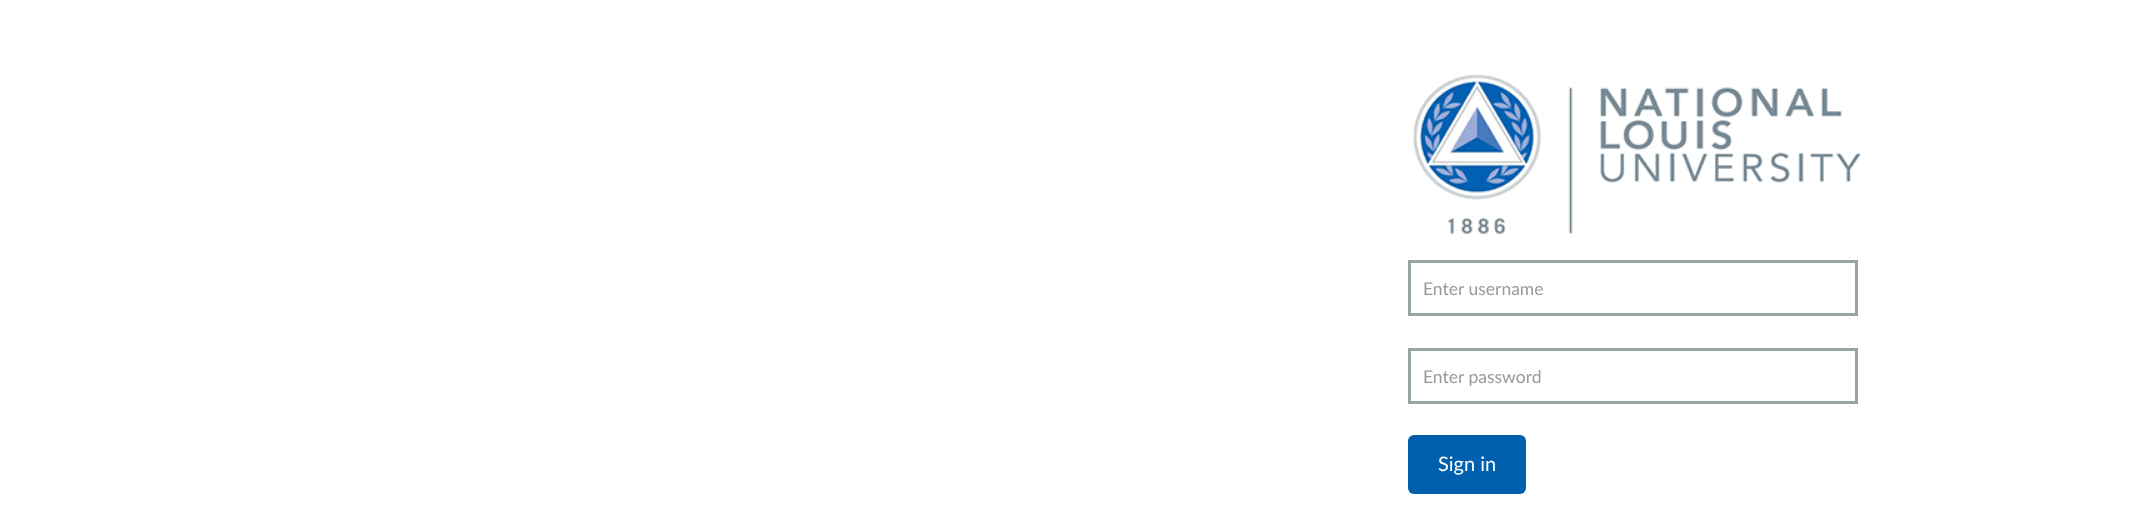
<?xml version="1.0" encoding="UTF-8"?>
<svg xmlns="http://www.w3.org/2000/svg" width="2152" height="522">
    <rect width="100%" height="100%" fill="#FFFFFF"/>
    <image x="1413" y="75" width="448" height="159" href="img_01.png"/>
    <rect x="1409.5" y="261.5" width="447" height="53" fill="none" stroke="#98A3A6" stroke-width="3"/>
    <text x="1423" y="295" font-family="Lato" font-size="17.5" fill="#999999">Enter username</text>
    <rect x="1409.5" y="349.5" width="447" height="53" fill="none" stroke="#98A3A6" stroke-width="3"/>
    <text x="1423" y="383" font-family="Lato" font-size="17.5" fill="#999999">Enter password</text>
    <rect x="1408" y="435" width="118" height="59" rx="6" fill="#0060AE"/>
    <text x="1438" y="471" font-family="Lato" font-size="20" fill="#FFFFFF">Sign in</text>
</svg>
